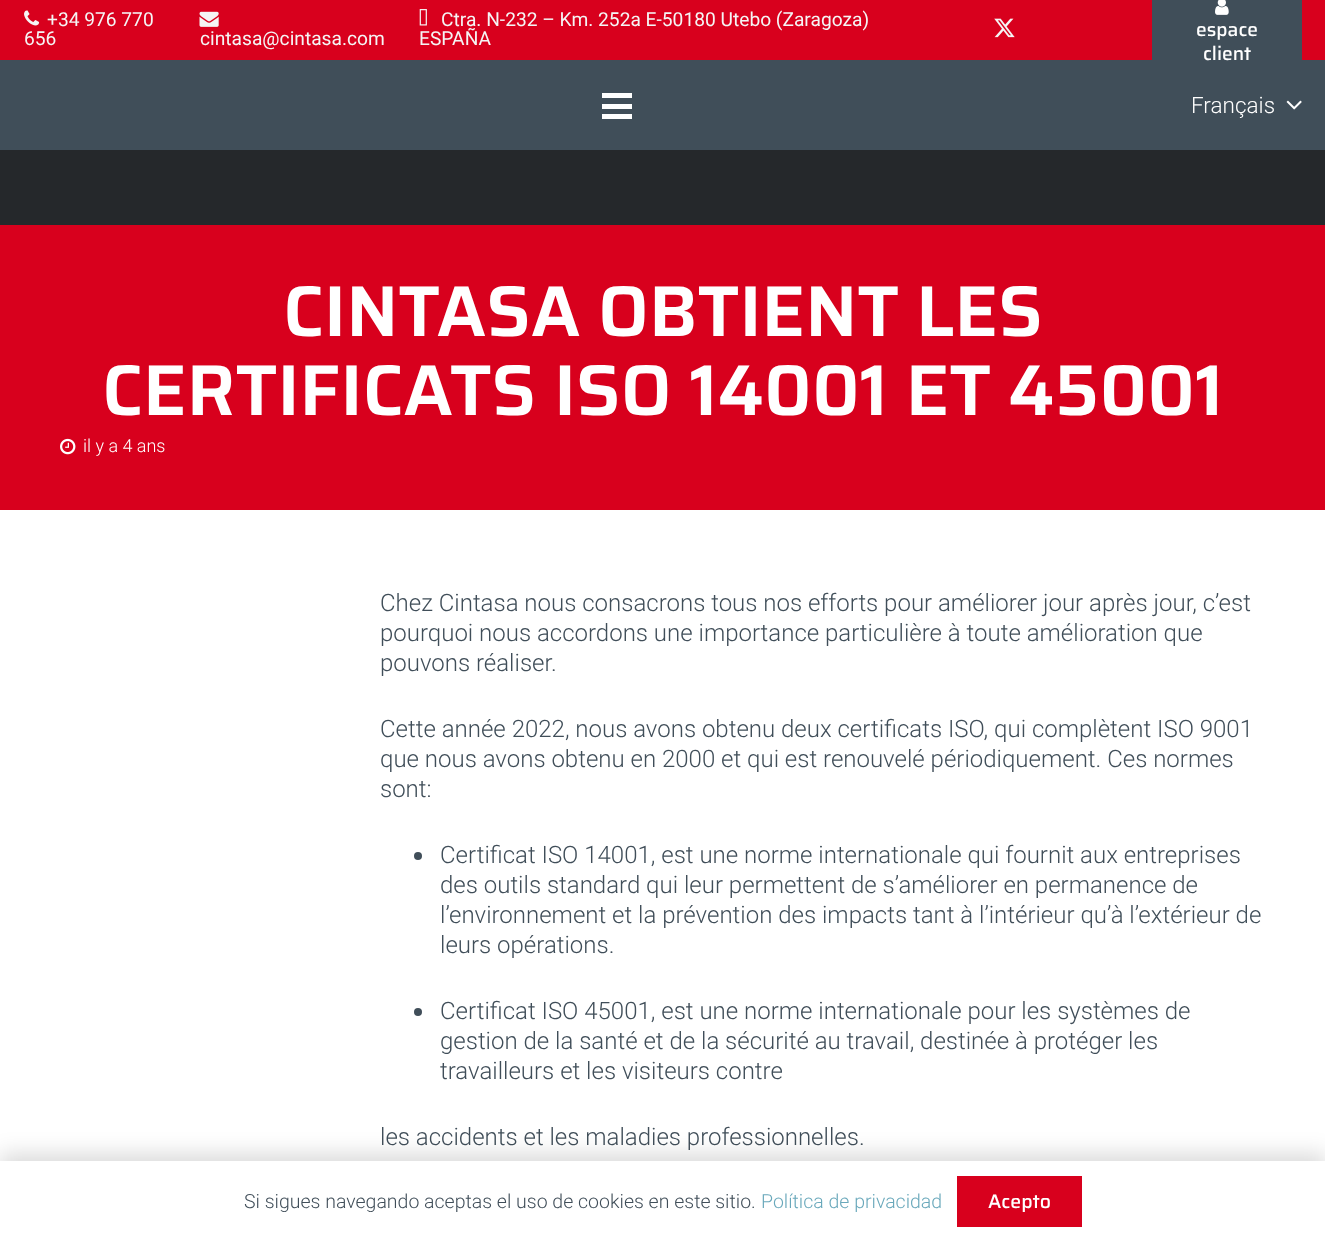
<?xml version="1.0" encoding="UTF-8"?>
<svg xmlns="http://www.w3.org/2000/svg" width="1325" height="1242">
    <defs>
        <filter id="blur1" x="-50%" y="-200%" width="200%" height="500%"><feGaussianBlur stdDeviation="11"/></filter>
    </defs>
    <rect width="100%" height="100%" fill="#FFFFFF"/>
    <rect x="0" y="0" width="1325" height="510" fill="#D8001D"/>
    <image x="24" y="10" width="16" height="16" href="img_01.png"/>
    <text x="47" y="26" font-family="Roboto" font-size="19.2" fill="#F5F5F5">+34 976 770</text>
    <text x="24" y="45" font-family="Roboto" font-size="19.2" fill="#F5F5F5">656</text>
    <image x="199" y="11" width="20" height="16" href="img_02.png"/>
    <text x="200" y="45" font-family="Roboto" font-size="19.2" fill="#F5F5F5">cintasa@cintasa.com</text>
    <image x="419" y="9" width="8" height="17" href="img_03.png"/>
    <text x="441" y="26" font-family="Roboto" font-size="19.2" fill="#F5F5F5">Ctra. N-232 – Km. 252a E-50180 Utebo (Zaragoza)</text>
    <text x="419" y="45" font-family="Roboto" font-size="19.2" fill="#F5F5F5">ESPAÑA</text>
    <image x="994" y="18" width="21" height="20" href="img_04.png"/>
    <rect x="1152" y="0" width="150" height="60" fill="#404E59"/>
    <image x="1215" y="0" width="14" height="15" href="img_05.png"/>
    <text x="1196" y="36" font-family="'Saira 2'" font-size="19.2" font-weight="100" fill="#FFFFFF">espace</text>
    <rect x="0" y="60" width="1325" height="90" fill="#404E59"/>
    <text x="1203" y="60" font-family="'Saira 2'" font-size="19.2" font-weight="100" fill="#FFFFFF">client</text>
    <rect x="602" y="104" width="30" height="5" fill="#FFFFFF"/>
    <rect x="602" y="93" width="30" height="5" fill="#FFFFFF"/>
    <rect x="602" y="114" width="30" height="5" fill="#FFFFFF"/>
    <text x="1191" y="113" font-family="Roboto" font-size="22.5" font-weight="300" fill="#FFFFFF">Français</text>
    <image x="1286" y="100" width="16" height="10" href="img_06.png"/>
    <rect x="0" y="150" width="1325" height="75" fill="#25282B"/>
    <text x="283" y="336" font-family="Saira" font-size="72" font-weight="100" fill="#FFFFFF">CINTASA OBTIENT LES</text>
    <text x="102" y="415" font-family="Saira" font-size="72" font-weight="100" fill="#FFFFFF">CERTIFICATS ISO 14001 ET 45001</text>
    <image x="60" y="438" width="16" height="17" href="img_07.png"/>
    <text x="83" y="452" font-family="Roboto" font-size="18" font-weight="300" fill="#FFFFFF">il y a 4 ans</text>
    <text font-family="Roboto" font-size="24" font-weight="300" fill="#404E59">
        <tspan x="380" y="611">Chez Cintasa nous consacrons tous nos efforts pour améliorer jour après jour, c’est</tspan>
        <tspan x="380" y="641">pourquoi nous accordons une importance particulière à toute amélioration que</tspan>
        <tspan x="380" y="671">pouvons réaliser.</tspan>
    </text>
    <text font-family="Roboto" font-size="24" font-weight="300" fill="#404E59">
        <tspan x="380" y="737">Cette année 2022, nous avons obtenu deux certificats ISO, qui complètent ISO 9001</tspan>
        <tspan x="380" y="767">que nous avons obtenu en 2000 et qui est renouvelé périodiquement. Ces normes</tspan>
        <tspan x="380" y="797">sont:</tspan>
    </text>
    <circle cx="418" cy="856" r="4" fill="#404E59"/>
    <text font-family="Roboto" font-size="24" font-weight="300" fill="#404E59">
        <tspan x="440" y="863">Certificat ISO 14001, est une norme internationale qui fournit aux entreprises</tspan>
        <tspan x="440" y="893">des outils standard qui leur permettent de s’améliorer en permanence de</tspan>
        <tspan x="440" y="923">l’environnement et la prévention des impacts tant à l’intérieur qu’à l’extérieur de</tspan>
        <tspan x="440" y="953">leurs opérations.</tspan>
    </text>
    <circle cx="418" cy="1012" r="4" fill="#404E59"/>
    <text font-family="Roboto" font-size="24" font-weight="300" fill="#404E59">
        <tspan x="440" y="1019">Certificat ISO 45001, est une norme internationale pour les systèmes de</tspan>
        <tspan x="440" y="1049">gestion de la santé et de la sécurité au travail, destinée à protéger les</tspan>
        <tspan x="440" y="1079">travailleurs et les visiteurs contre</tspan>
    </text>
    <text x="380" y="1145" font-family="Roboto" font-size="24" font-weight="300" fill="#404E59">les accidents et les maladies professionnelles.</text>
    <rect x="0" y="1154" width="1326" height="81" fill="#000000" fill-opacity="0.15" filter="url(#blur1)"/>
    <rect x="0" y="1161" width="1325" height="81" fill="#FFFFFF"/>
    <text x="244" y="1208" font-family="Roboto" font-size="19.5" font-weight="300" fill="#404E59">Si sigues navegando aceptas el uso de cookies en este sitio.</text>
    <text x="761" y="1208" font-family="Roboto" font-size="19.5" font-weight="300" fill="#69A8BB">Política de privacidad</text>
    <rect x="957" y="1176" width="125" height="51" fill="#D8001D"/>
    <text x="988" y="1208" font-family="'Saira 2'" font-size="19.5" font-weight="100" fill="#FFFFFF">Acepto</text>
</svg>
